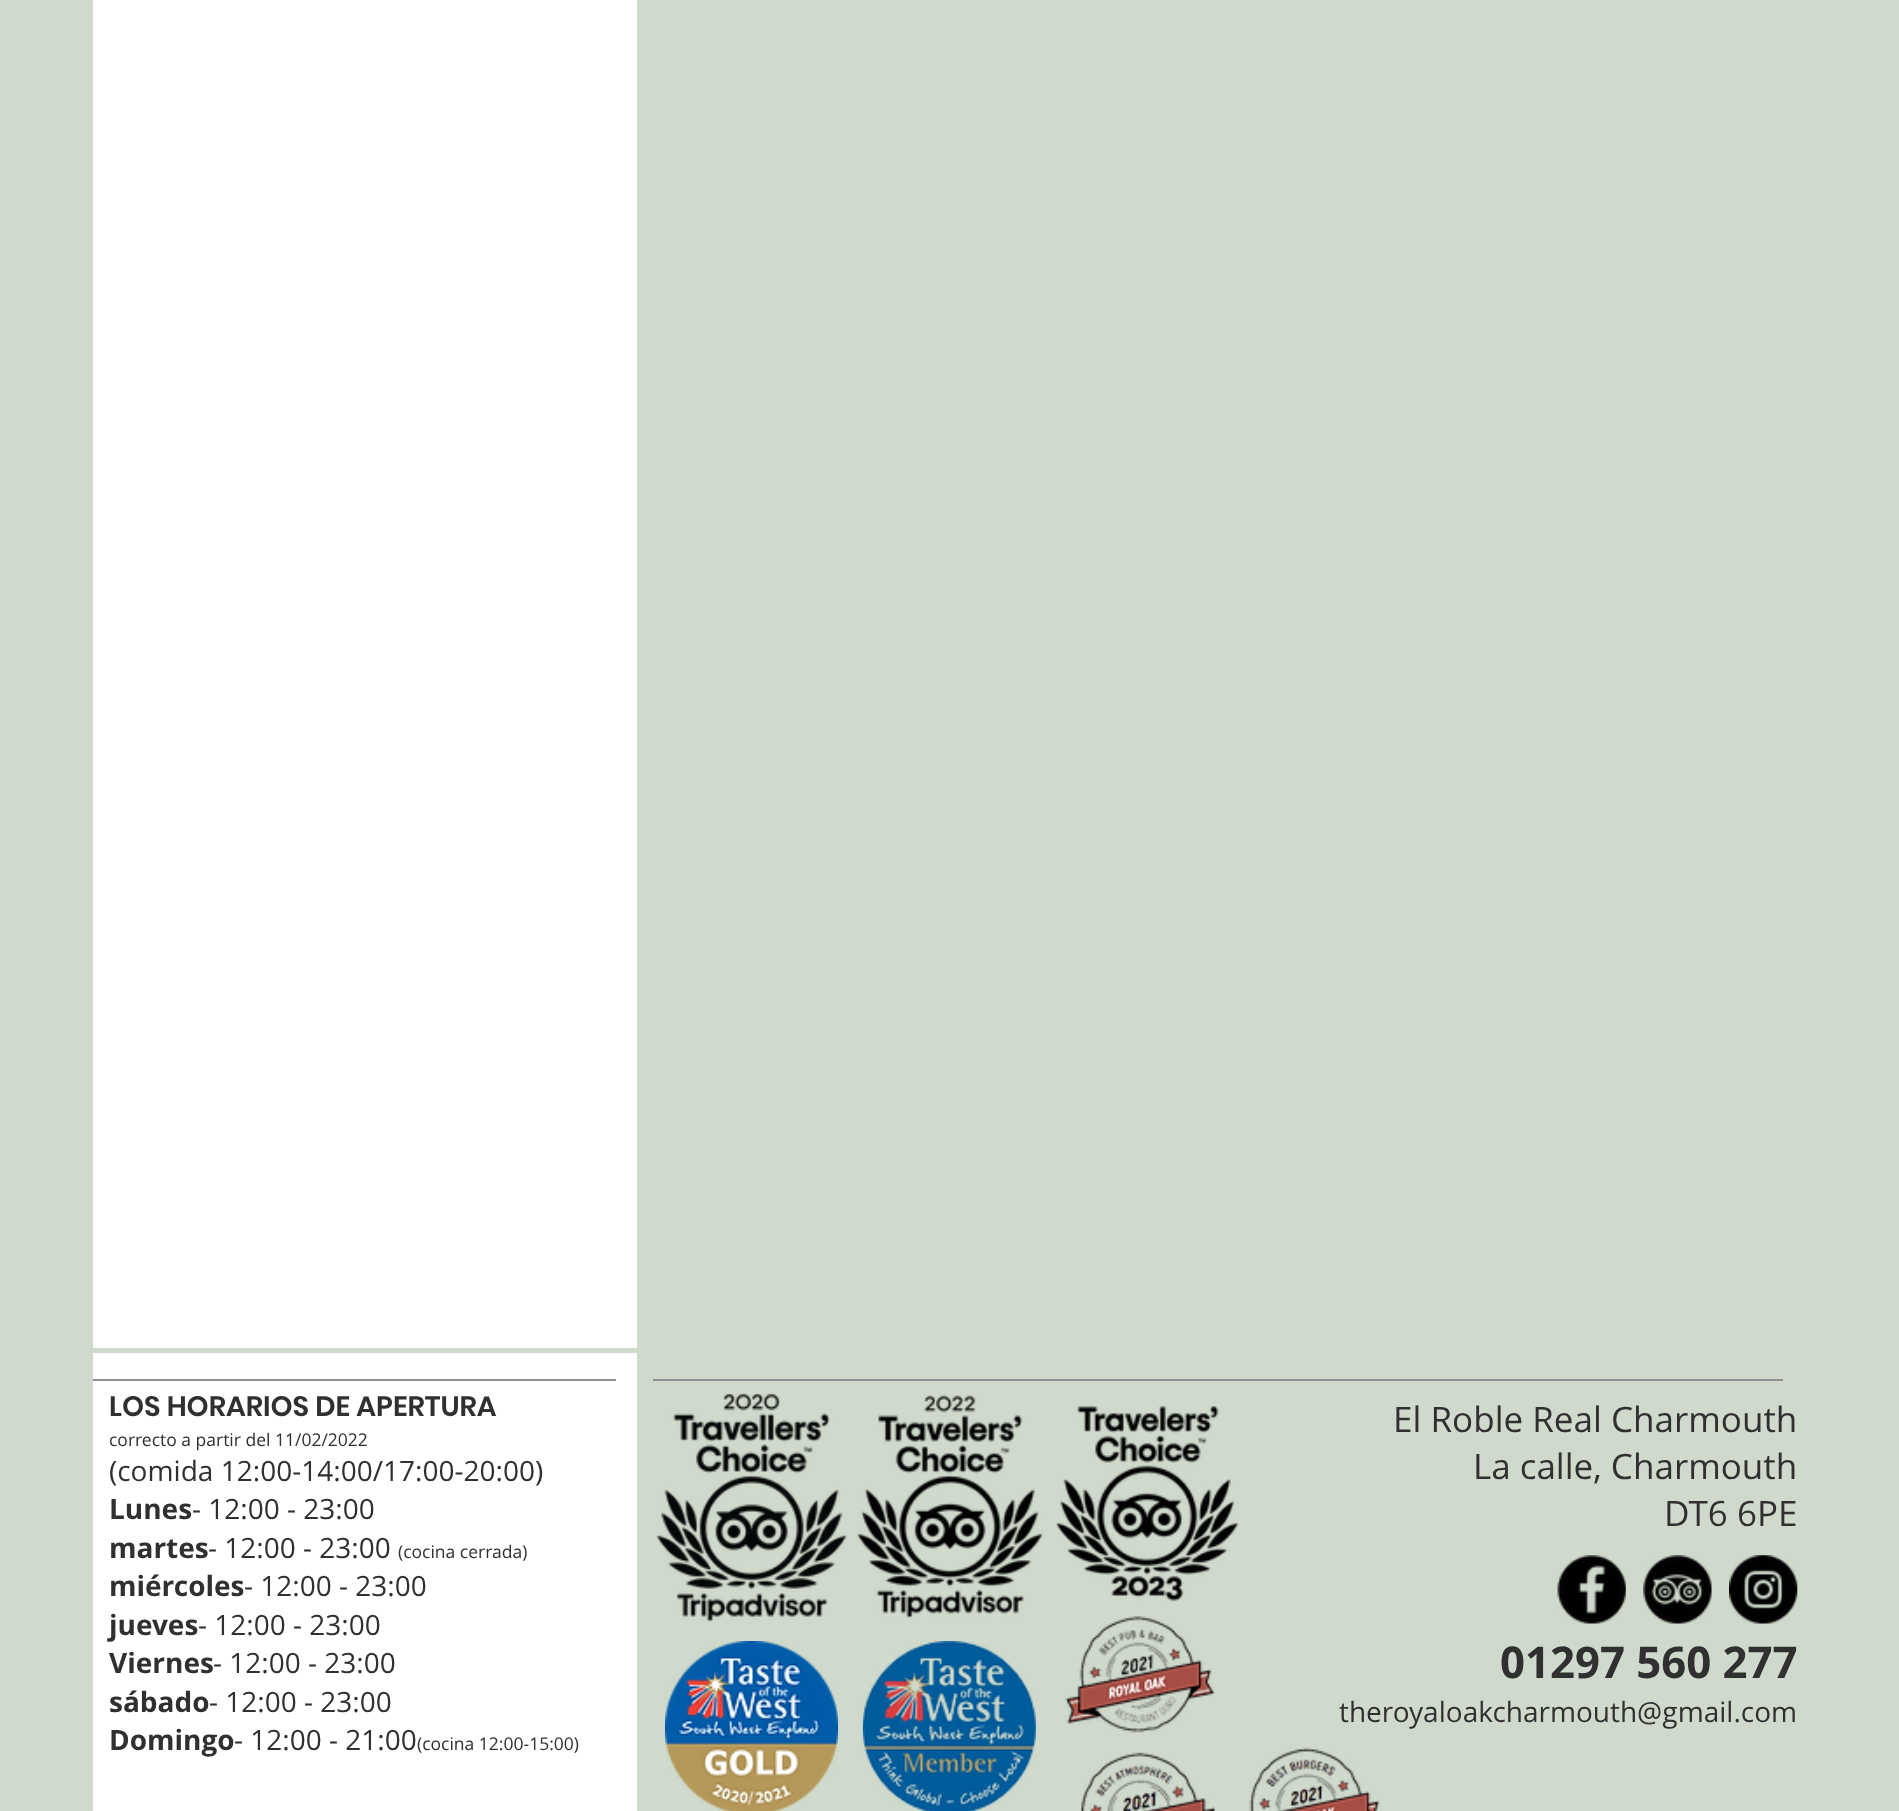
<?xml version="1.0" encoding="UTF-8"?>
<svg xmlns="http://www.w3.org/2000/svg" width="1899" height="1811">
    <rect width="100%" height="100%" fill="#D0DACC"/>
    <rect x="93" y="0" width="544" height="1348" fill="#FFFFFF"/>
    <rect x="93" y="1353" width="544" height="458" fill="#FFFFFF"/>
    <rect x="93" y="1379" width="523" height="2" fill="#909090"/>
    <rect x="653" y="1379" width="1130" height="2" fill="#909090"/>
    <text x="109" y="1416" font-family="Poppins" font-size="28" font-weight="600" fill="#303030">LOS HORARIOS DE APERTURA</text>
    <text x="109" y="1446" font-family="Open Sans" font-size="17.5" fill="#303030">correcto a partir del 11/02/2022</text>
    <text x="109" y="1481" font-family="Open Sans" font-size="28" fill="#303030">(comida 12:00-14:00/17:00-20:00)</text>
    <text x="109" y="1519" font-family="Open Sans" font-size="28" font-weight="700" fill="#303030">Lunes</text>
    <text x="192" y="1519" font-family="Open Sans" font-size="28" fill="#303030">- 12:00 - 23:00</text>
    <text x="109" y="1558" font-family="Open Sans" font-size="28" font-weight="700" fill="#303030">martes</text>
    <text x="208" y="1558" font-family="Open Sans" font-size="28" fill="#303030">- 12:00 - 23:00</text>
    <text x="398" y="1558" font-family="Open Sans" font-size="17.5" fill="#303030">(cocina cerrada)</text>
    <text x="109" y="1596" font-family="Open Sans" font-size="28" font-weight="700" fill="#303030">miércoles</text>
    <text x="244" y="1596" font-family="Open Sans" font-size="28" fill="#303030">- 12:00 - 23:00</text>
    <text x="109" y="1635" font-family="Open Sans" font-size="28" font-weight="700" fill="#303030">jueves</text>
    <text x="198" y="1635" font-family="Open Sans" font-size="28" fill="#303030">- 12:00 - 23:00</text>
    <text x="109" y="1673" font-family="Open Sans" font-size="28" font-weight="700" fill="#303030">Viernes</text>
    <text x="213" y="1673" font-family="Open Sans" font-size="28" fill="#303030">- 12:00 - 23:00</text>
    <text x="109" y="1712" font-family="Open Sans" font-size="28" font-weight="700" fill="#303030">sábado</text>
    <text x="209" y="1712" font-family="Open Sans" font-size="28" fill="#303030">- 12:00 - 23:00</text>
    <text x="109" y="1750" font-family="Open Sans" font-size="28" font-weight="700" fill="#303030">Domingo</text>
    <text x="234" y="1750" font-family="Open Sans" font-size="28" fill="#303030">- 12:00 - 21:00</text>
    <text x="417" y="1750" font-family="Open Sans" font-size="17.5" fill="#303030">(cocina 12:00-15:00)</text>
    <image x="656" y="1393" width="192" height="229" href="img_01.png"/>
    <image x="857" y="1395" width="187" height="224" href="img_02.png"/>
    <image x="1056" y="1406" width="183" height="196" href="img_03.png"/>
    <text x="1393" y="1432" font-family="Open Sans" font-size="35" fill="#303030">El Roble Real Charmouth</text>
    <text x="1473" y="1479" font-family="Open Sans" font-size="35" fill="#303030">La calle, Charmouth</text>
    <text x="1664" y="1526" font-family="Open Sans" font-size="35" fill="#303030">DT6 6PE</text>
    <text x="1500" y="1678" font-family="Open Sans" font-size="43.75" font-weight="700" fill="#303030">01297 560 277</text>
    <text x="1339" y="1722" font-family="Open Sans" font-size="28" fill="#303030">theroyaloakcharmouth@gmail.com</text>
    <image x="1557" y="1555" width="69" height="69" href="img_04.png"/>
    <image x="1643" y="1555" width="69" height="69" href="img_05.png"/>
    <image x="1729" y="1555" width="69" height="69" href="img_06.png"/>
    <image x="665" y="1641" width="174" height="170" href="img_07.png"/>
    <image x="862" y="1641" width="174" height="170" href="img_08.png"/>
    <image x="1065" y="1616" width="150" height="117" href="img_09.png"/>
    <image x="1249" y="1747" width="131" height="64" href="img_10.png"/>
    <image x="1081" y="1752" width="134" height="59" href="img_11.png"/>
</svg>
